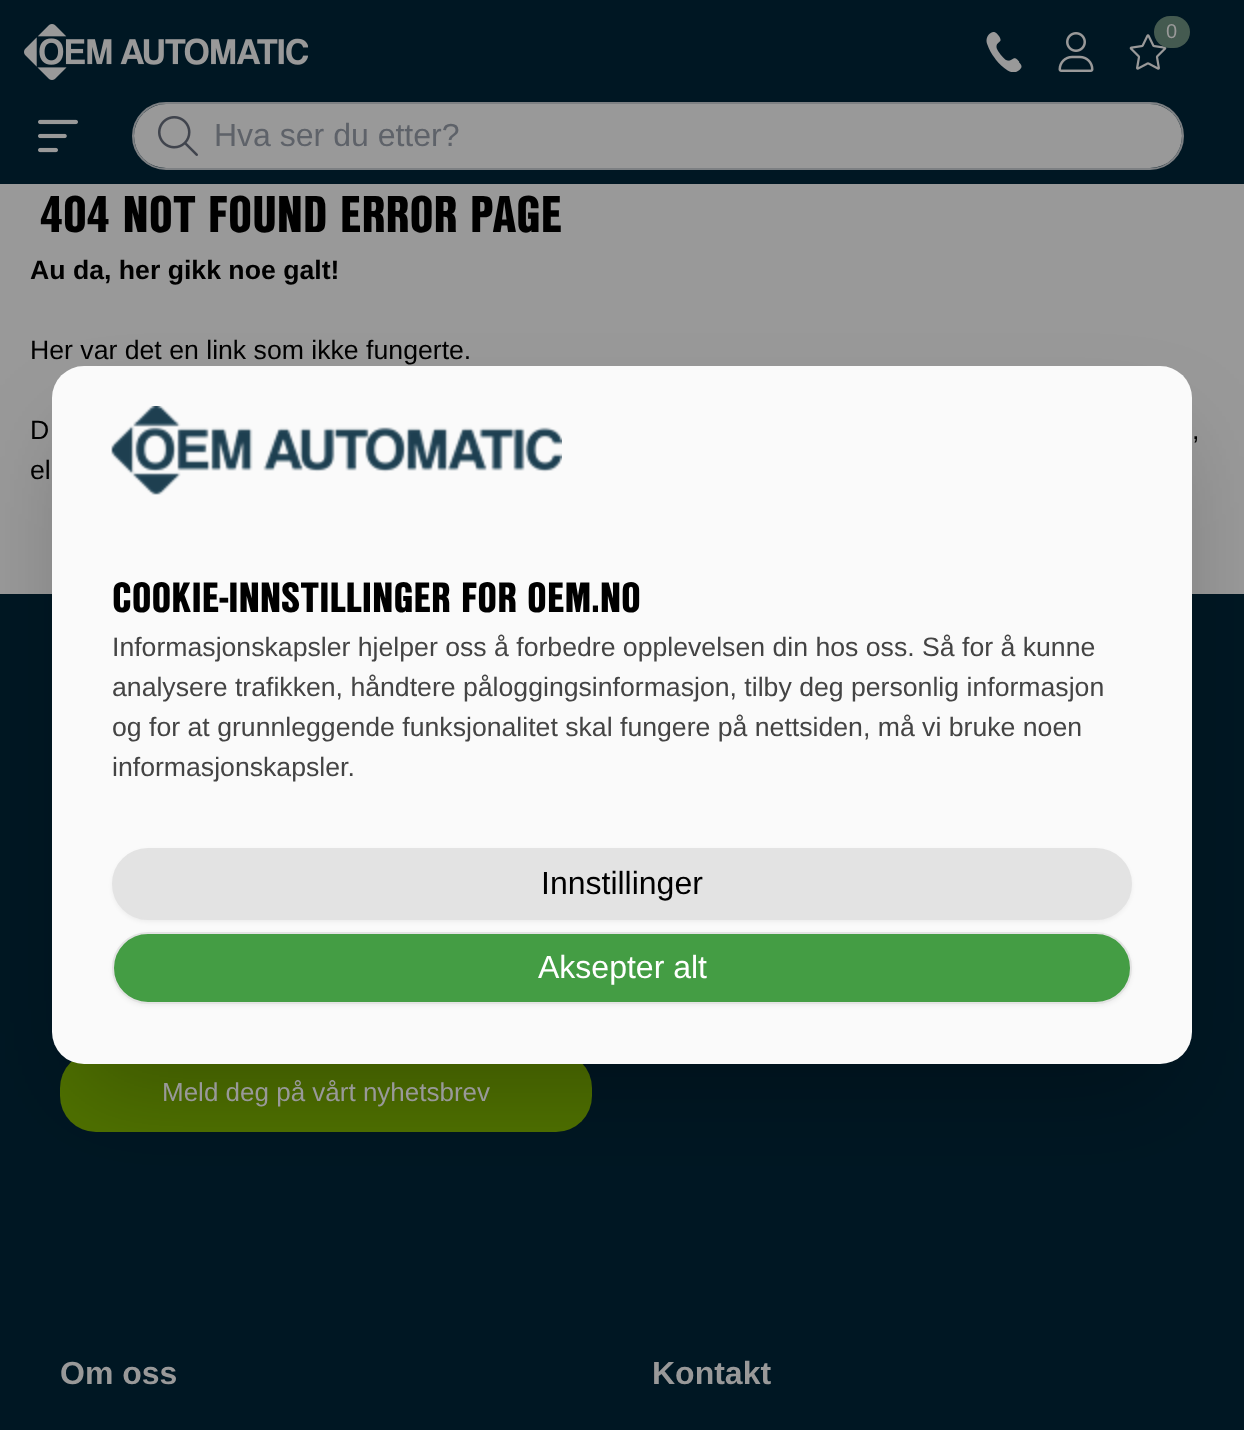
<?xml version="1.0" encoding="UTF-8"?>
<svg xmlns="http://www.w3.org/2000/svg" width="1244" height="1430">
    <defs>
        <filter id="blur1" x="-50%" y="-200%" width="200%" height="500%"><feGaussianBlur stdDeviation="50"/></filter>
        <filter id="blur2" x="-50%" y="-200%" width="200%" height="500%"><feGaussianBlur stdDeviation="2"/></filter>
    </defs>
    <rect width="100%" height="100%" fill="#999999"/>
    <rect x="0" y="0" width="1244" height="184" fill="#001723"/>
    <image x="24" y="24" width="284" height="56" href="img_01.png"/>
    <image x="986" y="32" width="36" height="40" href="img_02.png"/>
    <image x="1058" y="32" width="36" height="40" href="img_03.png"/>
    <image x="1129" y="34" width="38" height="36" href="img_04.png"/>
    <rect x="1154" y="16" width="36" height="32" rx="16" fill="#445A50"/>
    <text x="1166" y="38" font-family="Liberation Sans" font-size="20" fill="#999999">0</text>
    <image x="38" y="119" width="40" height="34" href="img_05.png"/>
    <rect x="133" y="103" width="1050" height="66" rx="33" fill="none" stroke="#7D8083" stroke-width="2"/>
    <rect x="134" y="104" width="1048" height="64" rx="32" fill="#999999"/>
    <image x="158" y="116" width="40" height="40" href="img_06.png"/>
    <text x="214" y="146" font-family="Liberation Sans" font-size="32" fill="#5E6269">Hva ser du etter?</text>
    <text x="40" y="232" font-family="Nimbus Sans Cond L" font-size="50" font-weight="900" fill="#000000">404 NOT FOUND ERROR PAGE</text>
    <text x="30" y="279" font-family="Liberation Sans" font-size="26.65" font-weight="700" fill="#000000">Au da, her gikk noe galt!</text>
    <text x="30" y="359" font-family="Liberation Sans" font-size="26.65" fill="#000000">Her var det en link som ikke fungerte.</text>
    <text x="30" y="439" font-family="Liberation Sans" font-size="26.65" fill="#000000">D</text>
    <text x="1192" y="439" font-family="Liberation Sans" font-size="26.65" fill="#000000">,</text>
    <text x="30" y="479" font-family="Liberation Sans" font-size="26.65" fill="#000000">el</text>
    <rect x="0" y="594" width="1244" height="836" fill="#001723"/>
    <rect x="60" y="1052" width="532" height="80" rx="36" fill="#4F7100"/>
    <rect x="76" y="440" width="1092" height="650" rx="8" fill="#000000" fill-opacity="0.25" filter="url(#blur1)"/>
    <rect x="52" y="366" width="1140" height="698" rx="32" fill="#FAFAFA"/>
    <image x="111" y="406" width="451" height="89" href="img_07.png"/>
    <text x="112" y="612" font-family="Nimbus Sans Cond L" font-size="41" font-weight="900" fill="#000000">COOKIE-INNSTILLINGER FOR OEM.NO</text>
    <text font-family="Liberation Sans" font-size="26.65" fill="#444444">
        <tspan x="112" y="656">Informasjonskapsler hjelper oss å forbedre opplevelsen din hos oss. Så for å kunne</tspan>
        <tspan x="112" y="696">analysere trafikken, håndtere påloggingsinformasjon, tilby deg personlig informasjon</tspan>
        <tspan x="112" y="736">og for at grunnleggende funksjonalitet skal fungere på nettsiden, må vi bruke noen</tspan>
        <tspan x="112" y="776">informasjonskapsler.</tspan>
    </text>
    <rect x="112" y="850" width="1020" height="72" rx="36" fill="#000000" fill-opacity="0.05" filter="url(#blur2)"/>
    <rect x="113" y="849" width="1018" height="70" rx="35" fill="#E3E3E3" stroke="#E3E3E3" stroke-width="2"/>
    <text x="541" y="894" font-family="Liberation Sans" font-size="32" fill="#000000">Innstillinger</text>
    <rect x="112" y="934" width="1020" height="72" rx="36" fill="#000000" fill-opacity="0.05" filter="url(#blur2)"/>
    <rect x="113" y="933" width="1018" height="70" rx="35" fill="#449D44" stroke="#E3E3E3" stroke-width="2"/>
    <text x="538" y="978" font-family="Liberation Sans" font-size="32" fill="#FFFFFF">Aksepter alt</text>
    <text x="162" y="1101" font-family="Liberation Sans" font-size="26" fill="#999999">Meld deg på vårt nyhetsbrev</text>
    <text x="60" y="1384" font-family="Liberation Sans" font-size="32" font-weight="700" fill="#999999">Om oss</text>
    <text x="652" y="1384" font-family="Liberation Sans" font-size="32" font-weight="700" fill="#999999">Kontakt</text>
</svg>
